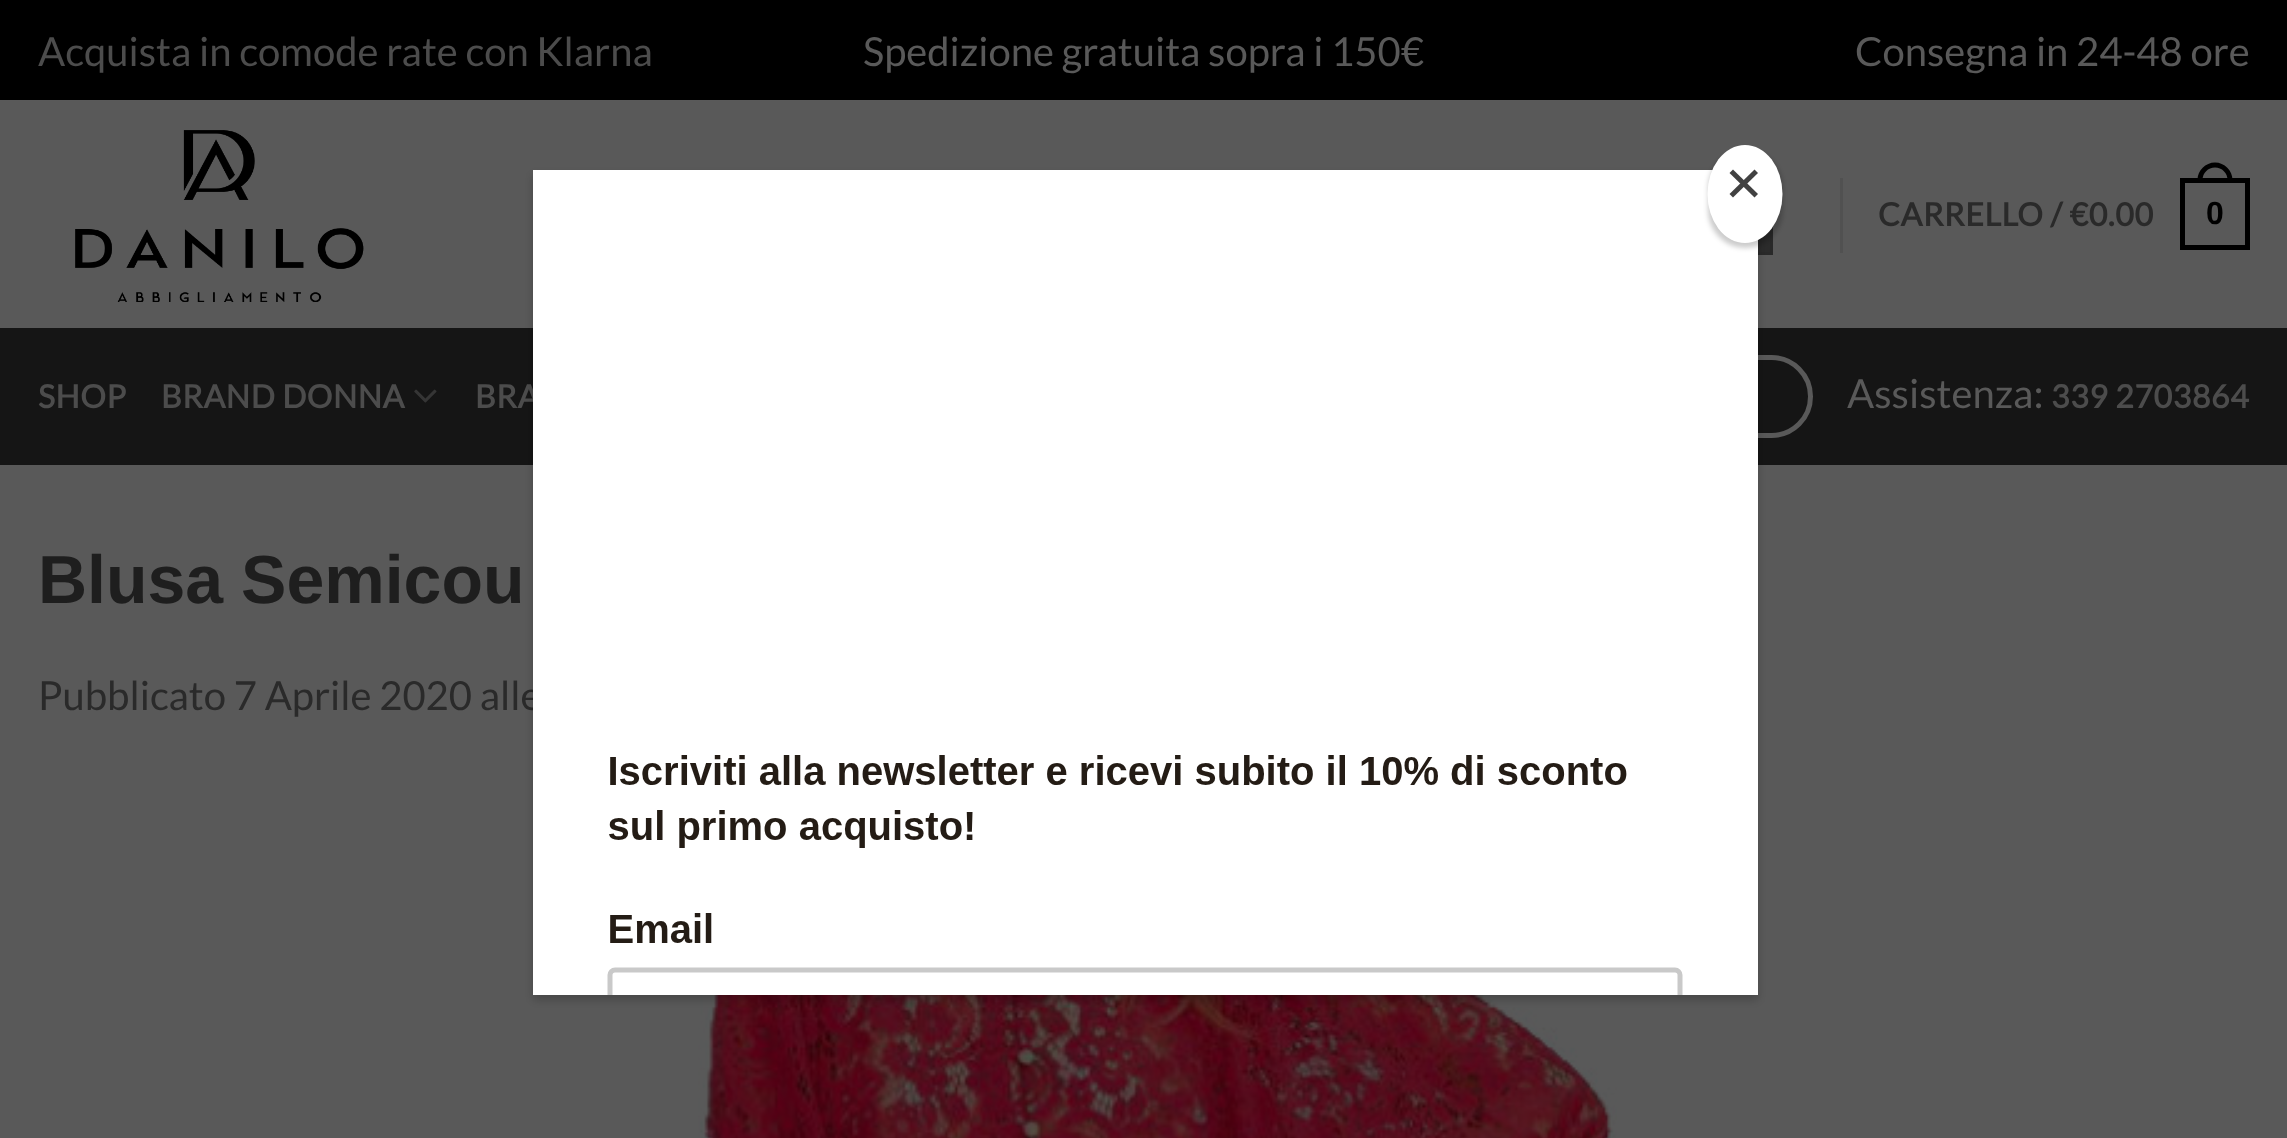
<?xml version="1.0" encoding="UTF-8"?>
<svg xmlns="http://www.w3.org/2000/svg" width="2287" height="1138">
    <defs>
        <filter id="blur1" x="-50%" y="-200%" width="200%" height="500%"><feGaussianBlur stdDeviation="5"/></filter>
        <filter id="blur2" x="-50%" y="-200%" width="200%" height="500%"><feGaussianBlur stdDeviation="2.5"/></filter>
    </defs>
    <rect width="100%" height="100%" fill="#595959"/>
    <rect x="0" y="0" width="2287" height="100" fill="#000000"/>
    <text x="38" y="66" font-family="Lato" font-size="40" fill="#4C4C4C">Acquista in comode rate con Klarna</text>
    <text x="863" y="66" font-family="Lato" font-size="40" fill="#595959">Spedizione gratuita sopra i 150€</text>
    <text x="1855" y="66" font-family="Lato" font-size="40" fill="#595959">Consegna in 24-48 ore</text>
    <image x="75" y="130" width="289" height="172" href="img_01.png"/>
    <rect x="1758" y="230" width="12" height="22" fill="#2B2B2B"/>
    <rect x="1689.5" y="174.5" width="82" height="79" fill="none" stroke="#292929" stroke-width="3"/>
    <rect x="1840" y="178" width="3" height="75" fill="#515151"/>
    <text x="1878" y="226" font-family="Lato" font-size="32" font-weight="700" letter-spacing="0.6" fill="#2A2A2A">CARRELLO / €0.00</text>
    <rect x="2182.5" y="180.5" width="65" height="67" fill="none" stroke="#000000" stroke-width="5"/>
    <path d="M 2215 162.5 C 2224.5 162.5 2232.5 170.5 2232.5 180 V 182.5 H 2197.5 V 180 C 2197.5 170.5 2205.5 162.5 2215 162.5 Z M 2215 167.5 C 2222 167.5 2227.5 173 2227.5 180 V 182.5 H 2202.5 V 180 C 2202.5 173 2208 167.5 2215 167.5 Z" fill="#000000" fill-rule="evenodd"/>
    <text x="2206" y="224" font-family="Liberation Sans" font-size="32" font-weight="700" letter-spacing="0.6" fill="#000000">0</text>
    <rect x="0" y="328" width="2287" height="137" fill="#151515"/>
    <text x="38" y="408" font-family="Lato" font-size="32" font-weight="700" letter-spacing="0.6" fill="#4C4C4C">SHOP</text>
    <text x="161" y="408" font-family="Lato" font-size="32" font-weight="700" letter-spacing="0.6" fill="#4C4C4C">BRAND DONNA</text>
    <image x="414" y="389" width="23" height="14" href="img_02.png"/>
    <text x="475" y="408" font-family="Lato" font-size="32" font-weight="700" letter-spacing="0.6" fill="#4C4C4C">BRA</text>
    <rect x="1170.5" y="357.5" width="640" height="78" rx="39" fill="none" stroke="#595959" stroke-width="5"/>
    <text x="1847" y="408" font-family="Lato" font-size="40" fill="#595959">Assistenza:</text>
    <text x="2051" y="408" font-family="Lato" font-size="32" font-weight="700" letter-spacing="0.6" fill="#4C4C4C">339 2703864</text>
    <text x="38" y="603" word-spacing="-1" font-family="Liberation Sans" font-size="68" font-weight="700" fill="#1E1E1E">Blusa Semicou</text>
    <text x="38" y="710" font-family="Lato" font-size="40" fill="#2A2A2A">Pubblicato 7 Aprile 2020 alle</text>
    <image x="698" y="995" width="919" height="143" href="img_03.png"/>
    <rect x="533" y="175" width="1225" height="825" fill="#000000" fill-opacity="0.2" filter="url(#blur1)"/>
    <image x="533" y="170" width="1225" height="825" href="img_04.png"/>
    <rect x="1708" y="150" width="75" height="98" rx="37.5" fill="#000000" fill-opacity="0.2" filter="url(#blur2)"/>
    <ellipse cx="1745" cy="194" rx="37.5" ry="49" fill="#FFFFFF"/>
    <path d="M 1754.5 169.5 L 1758 173 L 1733 197.5 L 1729.5 194 Z" fill="#414141"/>
    <path d="M 1729.5 173 L 1733 169.5 L 1758 194 L 1754.5 197.5 Z" fill="#414141"/>
</svg>
